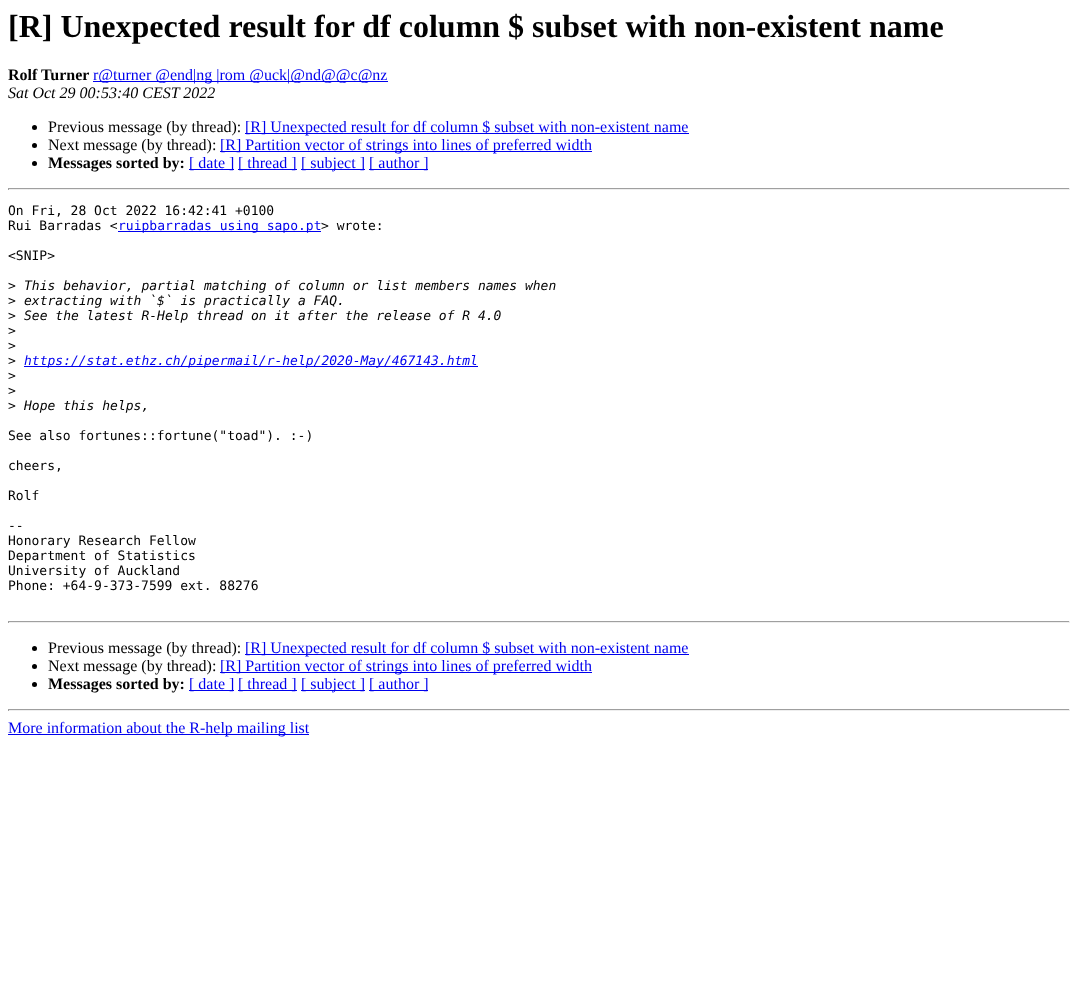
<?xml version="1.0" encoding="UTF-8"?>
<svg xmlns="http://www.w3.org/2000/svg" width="1078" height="982">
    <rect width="100%" height="100%" fill="#FFFFFF"/>
    <text x="8" y="37" font-family="Liberation Serif" font-size="32" font-weight="700" fill="#000000">[R] Unexpected result for df column $ subset with non-existent name</text>
    <text x="8" y="80" font-family="Liberation Serif" font-size="16" font-weight="700" fill="#000000">Rolf Turner</text>
    <rect x="93" y="81" width="295" height="1" fill="#0000EE"/>
    <text x="93" y="80" font-family="Liberation Serif" font-size="16" fill="#0000EE">r@turner @end|ng |rom @uck|@nd@@c@nz</text>
    <text x="8" y="98" font-family="Liberation Serif" font-size="16" font-style="italic" fill="#000000">Sat Oct 29 00:53:40 CEST 2022</text>
    <circle cx="34.5" cy="127.5" r="2.5" fill="#000000"/>
    <text x="48" y="132" font-family="Liberation Serif" font-size="16" fill="#000000">Previous message (by thread):</text>
    <rect x="245" y="133" width="444" height="1" fill="#0000EE"/>
    <text x="245" y="132" font-family="Liberation Serif" font-size="16" fill="#0000EE">[R] Unexpected result for df column $ subset with non-existent name</text>
    <circle cx="34.5" cy="145.5" r="2.5" fill="#000000"/>
    <text x="48" y="150" font-family="Liberation Serif" font-size="16" fill="#000000">Next message (by thread):</text>
    <rect x="220" y="151" width="372" height="1" fill="#0000EE"/>
    <text x="220" y="150" font-family="Liberation Serif" font-size="16" fill="#0000EE">[R] Partition vector of strings into lines of preferred width</text>
    <circle cx="34.5" cy="163.5" r="2.5" fill="#000000"/>
    <text x="48" y="168" font-family="Liberation Serif" font-size="16" font-weight="700" fill="#000000">Messages sorted by:</text>
    <rect x="189" y="169" width="45" height="1" fill="#0000EE"/>
    <text x="189" y="168" font-family="Liberation Serif" font-size="16" fill="#0000EE">[ date ]</text>
    <rect x="238" y="169" width="59" height="1" fill="#0000EE"/>
    <text x="238" y="168" font-family="Liberation Serif" font-size="16" fill="#0000EE">[ thread ]</text>
    <rect x="301" y="169" width="64" height="1" fill="#0000EE"/>
    <text x="301" y="168" font-family="Liberation Serif" font-size="16" fill="#0000EE">[ subject ]</text>
    <rect x="369" y="169" width="59" height="1" fill="#0000EE"/>
    <text x="369" y="168" font-family="Liberation Serif" font-size="16" fill="#0000EE">[ author ]</text>
    <rect x="8" y="188" width="1062" height="1" fill="#9F9F9F"/>
    <rect x="1069" y="188" width="1" height="2" fill="#EEEEEE"/>
    <rect x="8" y="189" width="1062" height="1" fill="#EEEEEE"/>
    <rect x="8" y="188" width="1" height="2" fill="#9F9F9F"/>
    <text font-family="DejaVu Sans Mono" font-size="13" fill="#000000">
        <tspan x="8" y="215">On Fri, 28 Oct 2022 16:42:41 +0100</tspan>
        <tspan x="8" y="230">Rui Barradas &lt;</tspan>
    </text>
    <rect x="118" y="231" width="203" height="1" fill="#0000EE"/>
    <text x="118" y="230" font-family="DejaVu Sans Mono" font-size="13" fill="#0000EE">ruipbarradas using sapo.pt</text>
    <text x="321" y="230" font-family="DejaVu Sans Mono" font-size="13" fill="#000000">&gt; wrote:</text>
    <text x="8" y="260" font-family="DejaVu Sans Mono" font-size="13" fill="#000000">&lt;SNIP&gt;</text>
    <text x="8" y="290" font-family="DejaVu Sans Mono" font-size="13" fill="#000000">&gt;</text>
    <text x="24" y="290" font-family="DejaVu Sans Mono" font-size="13" font-style="italic" fill="#000000">This behavior, partial matching of column or list members names when</text>
    <text x="8" y="305" font-family="DejaVu Sans Mono" font-size="13" fill="#000000">&gt;</text>
    <text x="24" y="305" font-family="DejaVu Sans Mono" font-size="13" font-style="italic" fill="#000000">extracting with `$` is practically a FAQ.</text>
    <text x="8" y="320" font-family="DejaVu Sans Mono" font-size="13" fill="#000000">&gt;</text>
    <text x="24" y="320" font-family="DejaVu Sans Mono" font-size="13" font-style="italic" fill="#000000">See the latest R-Help thread on it after the release of R 4.0</text>
    <text font-family="DejaVu Sans Mono" font-size="13" fill="#000000">
        <tspan x="8" y="335">&gt;</tspan>
        <tspan x="8" y="350">&gt;</tspan>
        <tspan x="8" y="365">&gt;</tspan>
    </text>
    <rect x="24" y="366" width="454" height="1" fill="#0000EE"/>
    <text x="24" y="365" font-family="DejaVu Sans Mono" font-size="13" font-style="italic" fill="#0000EE">https://stat.ethz.ch/pipermail/r-help/2020-May/467143.html</text>
    <text font-family="DejaVu Sans Mono" font-size="13" fill="#000000">
        <tspan x="8" y="380">&gt;</tspan>
        <tspan x="8" y="395">&gt;</tspan>
        <tspan x="8" y="410">&gt;</tspan>
    </text>
    <text x="24" y="410" font-family="DejaVu Sans Mono" font-size="13" font-style="italic" fill="#000000">Hope this helps,</text>
    <text x="8" y="440" font-family="DejaVu Sans Mono" font-size="13" fill="#000000">See also fortunes::fortune("toad"). :-)</text>
    <text x="8" y="470" font-family="DejaVu Sans Mono" font-size="13" fill="#000000">cheers,</text>
    <text x="8" y="500" font-family="DejaVu Sans Mono" font-size="13" fill="#000000">Rolf</text>
    <text font-family="DejaVu Sans Mono" font-size="13" fill="#000000">
        <tspan x="8" y="530">--</tspan>
        <tspan x="8" y="545">Honorary Research Fellow</tspan>
        <tspan x="8" y="560">Department of Statistics</tspan>
        <tspan x="8" y="575">University of Auckland</tspan>
        <tspan x="8" y="590">Phone: +64-9-373-7599 ext. 88276</tspan>
    </text>
    <rect x="8" y="621" width="1062" height="1" fill="#9F9F9F"/>
    <rect x="1069" y="621" width="1" height="2" fill="#EEEEEE"/>
    <rect x="8" y="622" width="1062" height="1" fill="#EEEEEE"/>
    <rect x="8" y="621" width="1" height="2" fill="#9F9F9F"/>
    <circle cx="34.5" cy="648.5" r="2.5" fill="#000000"/>
    <text x="48" y="653" font-family="Liberation Serif" font-size="16" fill="#000000">Previous message (by thread):</text>
    <rect x="245" y="654" width="444" height="1" fill="#0000EE"/>
    <text x="245" y="653" font-family="Liberation Serif" font-size="16" fill="#0000EE">[R] Unexpected result for df column $ subset with non-existent name</text>
    <circle cx="34.5" cy="666.5" r="2.5" fill="#000000"/>
    <text x="48" y="671" font-family="Liberation Serif" font-size="16" fill="#000000">Next message (by thread):</text>
    <rect x="220" y="672" width="372" height="1" fill="#0000EE"/>
    <text x="220" y="671" font-family="Liberation Serif" font-size="16" fill="#0000EE">[R] Partition vector of strings into lines of preferred width</text>
    <circle cx="34.5" cy="684.5" r="2.5" fill="#000000"/>
    <text x="48" y="689" font-family="Liberation Serif" font-size="16" font-weight="700" fill="#000000">Messages sorted by:</text>
    <rect x="189" y="690" width="45" height="1" fill="#0000EE"/>
    <text x="189" y="689" font-family="Liberation Serif" font-size="16" fill="#0000EE">[ date ]</text>
    <rect x="238" y="690" width="59" height="1" fill="#0000EE"/>
    <text x="238" y="689" font-family="Liberation Serif" font-size="16" fill="#0000EE">[ thread ]</text>
    <rect x="301" y="690" width="64" height="1" fill="#0000EE"/>
    <text x="301" y="689" font-family="Liberation Serif" font-size="16" fill="#0000EE">[ subject ]</text>
    <rect x="369" y="690" width="59" height="1" fill="#0000EE"/>
    <text x="369" y="689" font-family="Liberation Serif" font-size="16" fill="#0000EE">[ author ]</text>
    <rect x="8" y="709" width="1062" height="1" fill="#9F9F9F"/>
    <rect x="1069" y="709" width="1" height="2" fill="#EEEEEE"/>
    <rect x="8" y="710" width="1062" height="1" fill="#EEEEEE"/>
    <rect x="8" y="709" width="1" height="2" fill="#9F9F9F"/>
    <rect x="8" y="734" width="301" height="1" fill="#0000EE"/>
    <text x="8" y="733" font-family="Liberation Serif" font-size="16" fill="#0000EE">More information about the R-help mailing list</text>
</svg>
